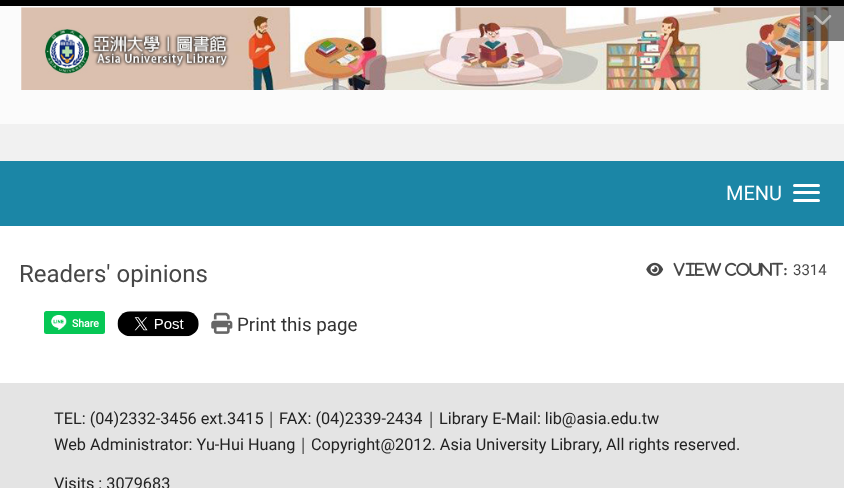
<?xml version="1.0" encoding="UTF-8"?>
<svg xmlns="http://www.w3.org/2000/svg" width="844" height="488">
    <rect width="100%" height="100%" fill="#FFFFFF"/>
    <rect x="0" y="0" width="844" height="6" fill="#000000"/>
    <rect x="0" y="6" width="844" height="118" fill="#FBFBFB"/>
    <image x="21" y="7" width="808" height="83" href="img_02.png"/>
    <rect x="800" y="6" width="44" height="35" fill="#000000" fill-opacity="0.5"/>
    <image x="813" y="15" width="19" height="10" href="img_01.png"/>
    <rect x="0" y="124" width="844" height="37" fill="#F1F1F1"/>
    <rect x="0" y="161" width="844" height="65" fill="#1B86A6"/>
    <text x="726" y="200" font-family="Roboto" font-size="20" fill="#FFFFFF">MENU</text>
    <rect x="793" y="184" width="27" height="3" rx="1.5" fill="#FFFFFF"/>
    <rect x="793" y="191" width="27" height="3" rx="1.5" fill="#FFFFFF"/>
    <rect x="793" y="199" width="27" height="3" rx="1.5" fill="#FFFFFF"/>
    <text x="19" y="282" font-family="Roboto" font-size="24" fill="#474747">Readers' opinions</text>
    <image x="646" y="262" width="18" height="14" href="img_03.png"/>
    <image x="673" y="262" width="49" height="14" href="img_04.png"/>
    <image x="725" y="262" width="59" height="14" href="img_05.png"/>
    <text x="783" y="275" font-family="Liberation Serif" font-size="15" font-weight="700" fill="#474747">:</text>
    <text x="793" y="275" font-family="Roboto" font-size="15" fill="#474747">3314</text>
    <rect x="44" y="311" width="61" height="23" rx="2.5" fill="#06C755"/>
    <image x="51" y="315" width="16" height="15" href="img_06.png"/>
    <text x="72" y="327" font-family="Roboto" font-size="10.5" font-weight="700" fill="#FFFFFF">Share</text>
    <image x="117" y="311" width="82" height="26" href="img_07.png"/>
    <image x="211" y="312" width="22" height="22" href="img_08.png"/>
    <text x="237" y="331" font-family="Roboto" font-size="18.75" fill="#333333">Print this page</text>
    <rect x="0" y="383" width="844" height="105" fill="#E4E4E4"/>
    <text x="54" y="424" font-family="Roboto" font-size="16.25" fill="#222222">TEL: (04)2332-3456 ext.3415</text>
    <text x="263" y="424" font-family="WenQuanYi Zen Hei" font-size="16.25" font-weight="500" fill="#222222">｜</text>
    <text x="279" y="424" font-family="Roboto" font-size="16.25" fill="#222222">FAX: (04)2339-2434</text>
    <text x="423" y="424" font-family="WenQuanYi Zen Hei" font-size="16.25" font-weight="500" fill="#222222">｜</text>
    <text x="439" y="424" font-family="Roboto" font-size="16.25" fill="#222222">Library E-Mail: lib@asia.edu.tw</text>
    <text x="54" y="450" font-family="Roboto" font-size="16.25" fill="#222222">Web Administrator: Yu-Hui Huang</text>
    <text x="295" y="450" font-family="WenQuanYi Zen Hei" font-size="16.25" font-weight="500" fill="#222222">｜</text>
    <text x="311" y="450" font-family="Roboto" font-size="16.25" fill="#222222">Copyright@2012. Asia University Library, All rights reserved.</text>
    <text x="54" y="489" font-family="Roboto" font-size="16.25" fill="#222222">Visits : 3079683</text>
</svg>
